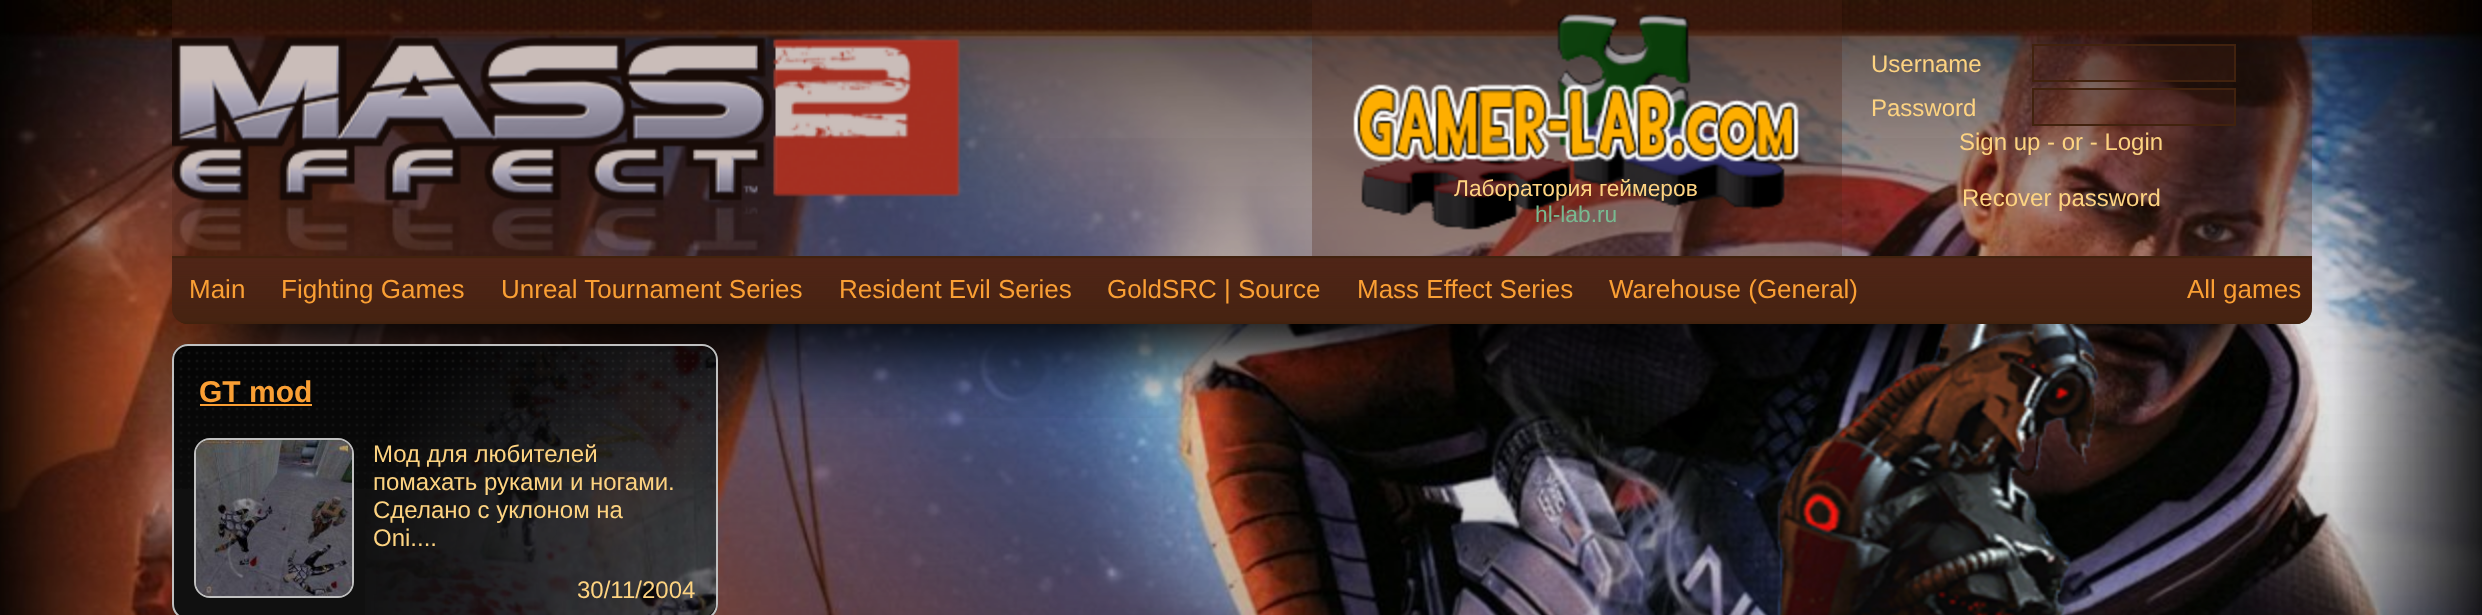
<?xml version="1.0" encoding="UTF-8"?>
<svg xmlns="http://www.w3.org/2000/svg" width="2482" height="615">
    <rect width="100%" height="100%" fill="#FFFFFF"/>
    <image x="0" y="0" width="2482" height="615" href="img_01.png"/>
    <image x="0" y="138" width="2482" height="477" href="img_02.png"/>
    <image x="172" y="37" width="789" height="219" href="img_03.png"/>
    <rect x="172" y="0" width="2140" height="256" fill="#512517" fill-opacity="0.3"/>
    <rect x="1312" y="0" width="530" height="256" fill="#512517" fill-opacity="0.3"/>
    <image x="1353" y="14" width="446" height="216" href="img_04.png"/>
    <text x="1454" y="196" font-family="Liberation Sans" font-size="22.75" fill="#FDD381">Лаборатория геймеров</text>
    <text x="1535" y="222" font-family="Liberation Sans" font-size="22.75" fill="#78BA91">hl-lab.ru</text>
    <text x="1871" y="72" font-family="Liberation Sans" font-size="24" fill="#FDD381">Username</text>
    <rect x="2033" y="45" width="202" height="36" fill="#512517" fill-opacity="0.3" stroke="#41220E" stroke-width="2"/>
    <text x="1871" y="116" font-family="Liberation Sans" font-size="24" fill="#FDD381">Password</text>
    <rect x="2033" y="89" width="202" height="36" fill="#512517" fill-opacity="0.3" stroke="#41220E" stroke-width="2"/>
    <text x="1959" y="150" font-family="Liberation Sans" font-size="24" fill="#FDD381">Sign up - or - Login</text>
    <text x="1962" y="206" font-family="Liberation Sans" font-size="24" fill="#FDD381">Recover password</text>
    <image x="193" y="324" width="247" height="20" href="img_05.png"/>
    <image x="440" y="324" width="1597" height="94" href="img_06.png"/>
    <image x="2057" y="324" width="234" height="83" href="img_07.png"/>
    <path d="M 172 256 H 2312 V 308 C 2312 317 2305 324 2296 324 H 188 C 179 324 172 317 172 308 Z" fill="#41220E"/>
    <image x="172" y="258" width="2140" height="66" href="img_08.png"/>
    <text x="189" y="298" font-family="Liberation Sans" font-size="26" fill="#FA9F34">Main</text>
    <text x="281" y="298" font-family="Liberation Sans" font-size="26" fill="#FA9F34">Fighting Games</text>
    <text x="501" y="298" font-family="Liberation Sans" font-size="26" fill="#FA9F34">Unreal Tournament Series</text>
    <text x="839" y="298" font-family="Liberation Sans" font-size="26" fill="#FA9F34">Resident Evil Series</text>
    <text x="1107" y="298" font-family="Liberation Sans" font-size="26" fill="#FA9F34">GoldSRC | Source</text>
    <text x="1357" y="298" font-family="Liberation Sans" font-size="26" fill="#FA9F34">Mass Effect Series</text>
    <text x="1609" y="298" font-family="Liberation Sans" font-size="26" fill="#FA9F34">Warehouse (General)</text>
    <text x="2187" y="298" font-family="Liberation Sans" font-size="26" fill="#FA9F34">All games</text>
    <rect x="172" y="344" width="546" height="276" rx="16" fill="#101010"/>
    <image x="172" y="345" width="546" height="144" href="img_09.png"/>
    <rect x="173" y="345" width="544" height="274" rx="15" fill="none" stroke="#C0C0C0" stroke-width="2"/>
    <text x="199" y="402" font-family="Liberation Sans" font-size="30" font-weight="700" fill="#FA9F34">GT mod</text>
    <rect x="200" y="404" width="112" height="2" fill="#FA9F34"/>
    <image x="365" y="346" width="351" height="269" href="img_10.png"/>
    <image x="196" y="440" width="156" height="156" href="img_11.png"/>
    <rect x="195" y="439" width="158" height="158" rx="15" fill="none" stroke="#C0C0C0" stroke-width="2"/>
    <image x="196" y="440" width="156" height="156" href="img_12.png"/>
    <text font-family="Liberation Sans" font-size="24" fill="#FDD381">
        <tspan x="373" y="462">Мод для любителей</tspan>
        <tspan x="373" y="490">помахать руками и ногами.</tspan>
        <tspan x="373" y="518">Сделано с уклоном на</tspan>
        <tspan x="373" y="546">Oni....</tspan>
    </text>
    <text x="577" y="598" font-family="Liberation Sans" font-size="24" fill="#FDD381">30/11/2004</text>
    <image x="1776" y="324" width="323" height="291" href="img_13.png"/>
</svg>
